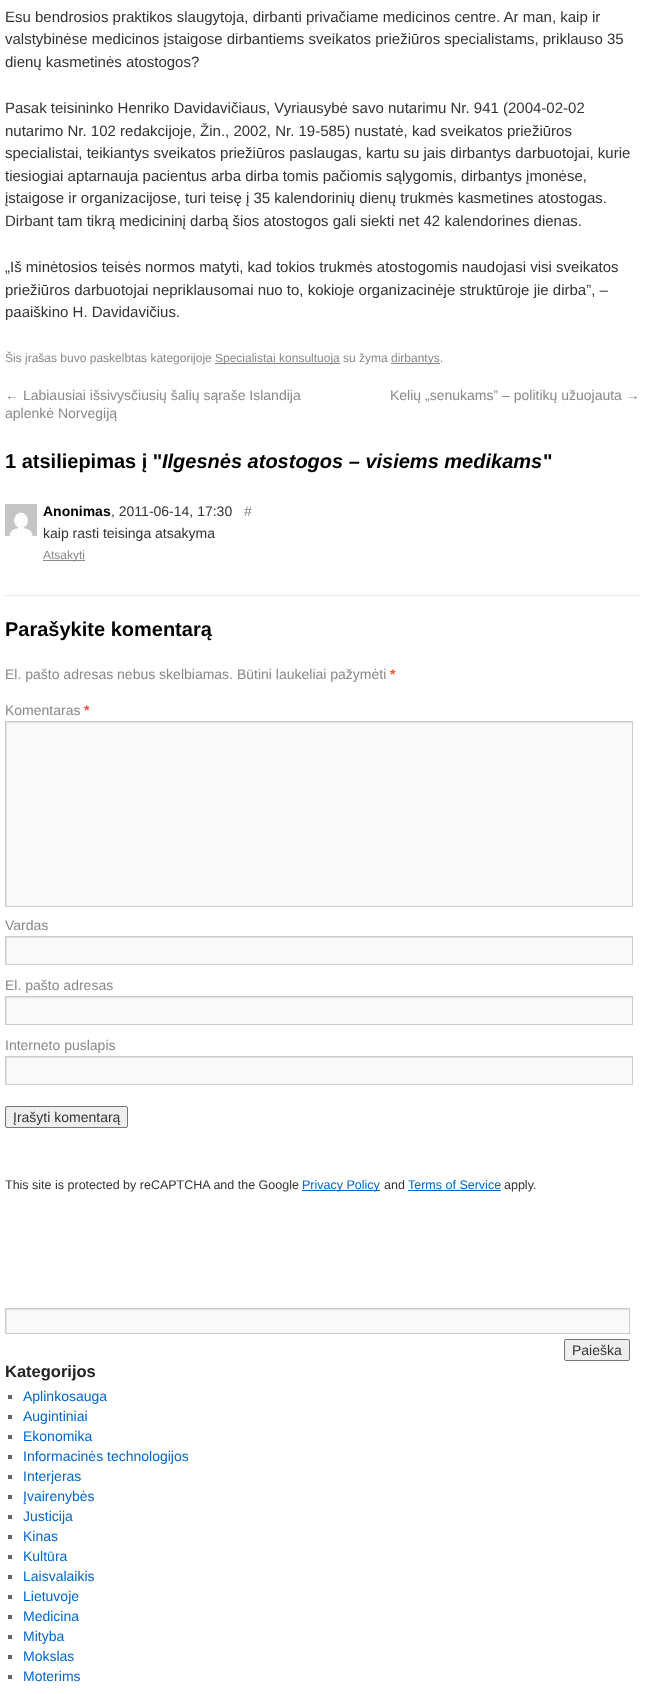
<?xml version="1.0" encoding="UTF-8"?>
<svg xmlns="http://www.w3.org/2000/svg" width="645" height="1694">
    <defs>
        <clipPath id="clip1"><rect x="6" y="722" width="626" height="184"/></clipPath>
        <clipPath id="clip2"><rect x="6" y="937" width="626" height="27"/></clipPath>
        <clipPath id="clip3"><rect x="6" y="997" width="626" height="27"/></clipPath>
        <clipPath id="clip4"><rect x="6" y="1057" width="626" height="27"/></clipPath>
        <clipPath id="clip5"><rect x="6" y="1309" width="623" height="24"/></clipPath>
    </defs>
    <rect width="100%" height="100%" fill="#FFFFFF"/>
    <text font-family="Liberation Sans" font-size="15" fill="#333333">
        <tspan x="5" y="22">Esu bendrosios praktikos slaugytoja, dirbanti privačiame medicinos centre. Ar man, kaip ir</tspan>
        <tspan x="5" y="44">valstybinėse medicinos įstaigose dirbantiems sveikatos priežiūros specialistams, priklauso 35</tspan>
        <tspan x="5" y="67">dienų kasmetinės atostogos?</tspan>
    </text>
    <text font-family="Liberation Sans" font-size="15" fill="#333333">
        <tspan x="5" y="113">Pasak teisininko Henriko Davidavičiaus, Vyriausybė savo nutarimu Nr. 941 (2004-02-02</tspan>
        <tspan x="5" y="136">nutarimo Nr. 102 redakcijoje, Žin., 2002, Nr. 19-585) nustatė, kad sveikatos priežiūros</tspan>
        <tspan x="5" y="158">specialistai, teikiantys sveikatos priežiūros paslaugas, kartu su jais dirbantys darbuotojai, kurie</tspan>
        <tspan x="5" y="181">tiesiogiai aptarnauja pacientus arba dirba tomis pačiomis sąlygomis, dirbantys įmonėse,</tspan>
        <tspan x="5" y="203">įstaigose ir organizacijose, turi teisę į 35 kalendorinių dienų trukmės kasmetines atostogas.</tspan>
        <tspan x="5" y="226">Dirbant tam tikrą medicininį darbą šios atostogos gali siekti net 42 kalendorines dienas.</tspan>
    </text>
    <text font-family="Liberation Sans" font-size="15" fill="#333333">
        <tspan x="5" y="272">„Iš minėtosios teisės normos matyti, kad tokios trukmės atostogomis naudojasi visi sveikatos</tspan>
        <tspan x="5" y="295">priežiūros darbuotojai nepriklausomai nuo to, kokioje organizacinėje struktūroje jie dirba”, –</tspan>
        <tspan x="5" y="317">paaiškino H. Davidavičius.</tspan>
    </text>
    <text x="5" y="362" font-family="Liberation Sans" font-size="12" fill="#888888">Šis įrašas buvo paskelbtas kategorijoje</text>
    <rect x="215" y="363" width="125" height="1" fill="#888888"/>
    <text x="215" y="362" font-family="Liberation Sans" font-size="12" fill="#888888">Specialistai konsultuoja su žyma</text>
    <rect x="391" y="363" width="49" height="1" fill="#888888"/>
    <text x="391" y="362" font-family="Liberation Sans" font-size="12" fill="#888888">dirbantys.</text>
    <text font-family="Liberation Sans" font-size="14" fill="#888888">
        <tspan x="5" y="400">← Labiausiai išsivysčiusių šalių sąraše Islandija</tspan>
        <tspan x="5" y="418">aplenkė Norvegiją</tspan>
    </text>
    <text x="390" y="400" font-family="Liberation Sans" font-size="14" fill="#888888">Kelių „senukams” – politikų užuojauta →</text>
    <text x="5" y="468" font-family="Liberation Sans" font-size="20" font-weight="700" fill="#000000">1 atsiliepimas į "</text>
    <text x="162" y="468" font-family="Liberation Sans" font-size="20" font-weight="700" font-style="italic" fill="#000000">Ilgesnės atostogos – visiems medikams</text>
    <text x="543" y="468" font-family="Liberation Sans" font-size="20" font-weight="700" fill="#000000">"</text>
    <image x="5" y="504" width="32" height="32" href="img_01.png"/>
    <text x="43" y="516" font-family="Liberation Sans" font-size="14" font-weight="700" fill="#000000">Anonimas</text>
    <text x="111" y="516" font-family="Liberation Sans" font-size="14" fill="#333333">, 2011-06-14, 17:30</text>
    <text x="244" y="516" font-family="Liberation Sans" font-size="14" fill="#888888">#</text>
    <text x="43" y="538" font-family="Liberation Sans" font-size="14" fill="#333333">kaip rasti teisinga atsakyma</text>
    <rect x="43" y="560" width="42" height="1" fill="#888888"/>
    <text x="43" y="559" font-family="Liberation Sans" font-size="12" fill="#888888">Atsakyti</text>
    <rect x="5" y="595" width="635" height="1" fill="#E7E7E7"/>
    <text x="5" y="636" font-family="Liberation Sans" font-size="20" font-weight="700" fill="#000000">Parašykite komentarą</text>
    <text x="5" y="679" font-family="Liberation Sans" font-size="14" fill="#888888">El. pašto adresas nebus skelbiamas. Būtini laukeliai pažymėti</text>
    <text x="390" y="679" font-family="Liberation Sans" font-size="14" font-weight="700" fill="#FF4B33">*</text>
    <text x="5" y="715" font-family="Liberation Sans" font-size="14" fill="#888888">Komentaras</text>
    <text x="84" y="715" font-family="Liberation Sans" font-size="14" font-weight="700" fill="#FF4B33">*</text>
    <rect x="7" y="723" width="625" height="183" fill="#F9F9F9"/>
    <g clip-path="url(#clip1)">
        <path d="M -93 623 H 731 V 1005 H -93 Z M 7 723 H 633 V 907 H 7 Z" fill="#E0E0E0" fill-rule="evenodd"/>
    </g>
    <rect x="5.5" y="721.5" width="627" height="185" fill="none" stroke="#CCCCCC"/>
    <text x="5" y="930" font-family="Liberation Sans" font-size="14" fill="#888888">Vardas</text>
    <rect x="7" y="938" width="625" height="26" fill="#F9F9F9"/>
    <g clip-path="url(#clip2)">
        <path d="M -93 838 H 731 V 1063 H -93 Z M 7 938 H 633 V 965 H 7 Z" fill="#E0E0E0" fill-rule="evenodd"/>
    </g>
    <rect x="5.5" y="936.5" width="627" height="28" fill="none" stroke="#CCCCCC"/>
    <text x="5" y="990" font-family="Liberation Sans" font-size="14" fill="#888888">El. pašto adresas</text>
    <rect x="7" y="998" width="625" height="26" fill="#F9F9F9"/>
    <g clip-path="url(#clip3)">
        <path d="M -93 898 H 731 V 1123 H -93 Z M 7 998 H 633 V 1025 H 7 Z" fill="#E0E0E0" fill-rule="evenodd"/>
    </g>
    <rect x="5.5" y="996.5" width="627" height="28" fill="none" stroke="#CCCCCC"/>
    <text x="5" y="1050" font-family="Liberation Sans" font-size="14" fill="#888888">Interneto puslapis</text>
    <rect x="7" y="1058" width="625" height="26" fill="#F9F9F9"/>
    <g clip-path="url(#clip4)">
        <path d="M -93 958 H 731 V 1183 H -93 Z M 7 1058 H 633 V 1085 H 7 Z" fill="#E0E0E0" fill-rule="evenodd"/>
    </g>
    <rect x="5.5" y="1056.5" width="627" height="28" fill="none" stroke="#CCCCCC"/>
    <rect x="5.5" y="1106.5" width="122" height="21" rx="1.5" fill="#EFEFEF" stroke="#767676"/>
    <text x="13" y="1122" font-family="Liberation Sans" font-size="14" fill="#333333">Įrašyti komentarą</text>
    <text x="5" y="1189" font-family="Liberation Sans" font-size="12.5" fill="#333333">This site is protected by reCAPTCHA and the Google</text>
    <rect x="302" y="1190" width="78" height="1" fill="#0066CC"/>
    <text x="302" y="1189" font-family="Liberation Sans" font-size="12.5" fill="#0066CC">Privacy Policy</text>
    <text x="384" y="1189" font-family="Liberation Sans" font-size="12.5" fill="#333333">and</text>
    <text x="408" y="1189" font-family="Liberation Sans" font-size="12.5" fill="#0066CC">Terms of Service</text>
    <rect x="408" y="1190" width="93" height="1" fill="#0066CC"/>
    <text x="504" y="1189" font-family="Liberation Sans" font-size="12.5" fill="#333333">apply.</text>
    <rect x="7" y="1310" width="622" height="23" fill="#F9F9F9"/>
    <g clip-path="url(#clip5)">
        <path d="M -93 1210 H 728 V 1432 H -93 Z M 7 1310 H 630 V 1334 H 7 Z" fill="#E0E0E0" fill-rule="evenodd"/>
    </g>
    <rect x="5.5" y="1308.5" width="624" height="25" fill="none" stroke="#CCCCCC"/>
    <rect x="564.5" y="1339.5" width="65" height="21" rx="1.5" fill="#EFEFEF" stroke="#767676"/>
    <text x="572" y="1355" font-family="Liberation Sans" font-size="14" fill="#333333">Paieška</text>
    <text x="5" y="1377" font-family="Liberation Sans" font-size="16.5" font-weight="700" fill="#222222">Kategorijos</text>
    <rect x="8" y="1395" width="4" height="4" fill="#666666"/>
    <text x="23" y="1401" font-family="Liberation Sans" font-size="14" fill="#0066CC">Aplinkosauga</text>
    <rect x="8" y="1415" width="4" height="4" fill="#666666"/>
    <text x="23" y="1421" font-family="Liberation Sans" font-size="14" fill="#0066CC">Augintiniai</text>
    <rect x="8" y="1435" width="4" height="4" fill="#666666"/>
    <text x="23" y="1441" font-family="Liberation Sans" font-size="14" fill="#0066CC">Ekonomika</text>
    <rect x="8" y="1455" width="4" height="4" fill="#666666"/>
    <text x="23" y="1461" font-family="Liberation Sans" font-size="14" fill="#0066CC">Informacinės technologijos</text>
    <rect x="8" y="1475" width="4" height="4" fill="#666666"/>
    <text x="23" y="1481" font-family="Liberation Sans" font-size="14" fill="#0066CC">Interjeras</text>
    <rect x="8" y="1495" width="4" height="4" fill="#666666"/>
    <text x="23" y="1501" font-family="Liberation Sans" font-size="14" fill="#0066CC">Įvairenybės</text>
    <rect x="8" y="1515" width="4" height="4" fill="#666666"/>
    <text x="23" y="1521" font-family="Liberation Sans" font-size="14" fill="#0066CC">Justicija</text>
    <rect x="8" y="1535" width="4" height="4" fill="#666666"/>
    <text x="23" y="1541" font-family="Liberation Sans" font-size="14" fill="#0066CC">Kinas</text>
    <rect x="8" y="1555" width="4" height="4" fill="#666666"/>
    <text x="23" y="1561" font-family="Liberation Sans" font-size="14" fill="#0066CC">Kultūra</text>
    <rect x="8" y="1575" width="4" height="4" fill="#666666"/>
    <text x="23" y="1581" font-family="Liberation Sans" font-size="14" fill="#0066CC">Laisvalaikis</text>
    <rect x="8" y="1595" width="4" height="4" fill="#666666"/>
    <text x="23" y="1601" font-family="Liberation Sans" font-size="14" fill="#0066CC">Lietuvoje</text>
    <rect x="8" y="1615" width="4" height="4" fill="#666666"/>
    <text x="23" y="1621" font-family="Liberation Sans" font-size="14" fill="#0066CC">Medicina</text>
    <rect x="8" y="1635" width="4" height="4" fill="#666666"/>
    <text x="23" y="1641" font-family="Liberation Sans" font-size="14" fill="#0066CC">Mityba</text>
    <rect x="8" y="1655" width="4" height="4" fill="#666666"/>
    <text x="23" y="1661" font-family="Liberation Sans" font-size="14" fill="#0066CC">Mokslas</text>
    <rect x="8" y="1675" width="4" height="4" fill="#666666"/>
    <text x="23" y="1681" font-family="Liberation Sans" font-size="14" fill="#0066CC">Moterims</text>
</svg>
